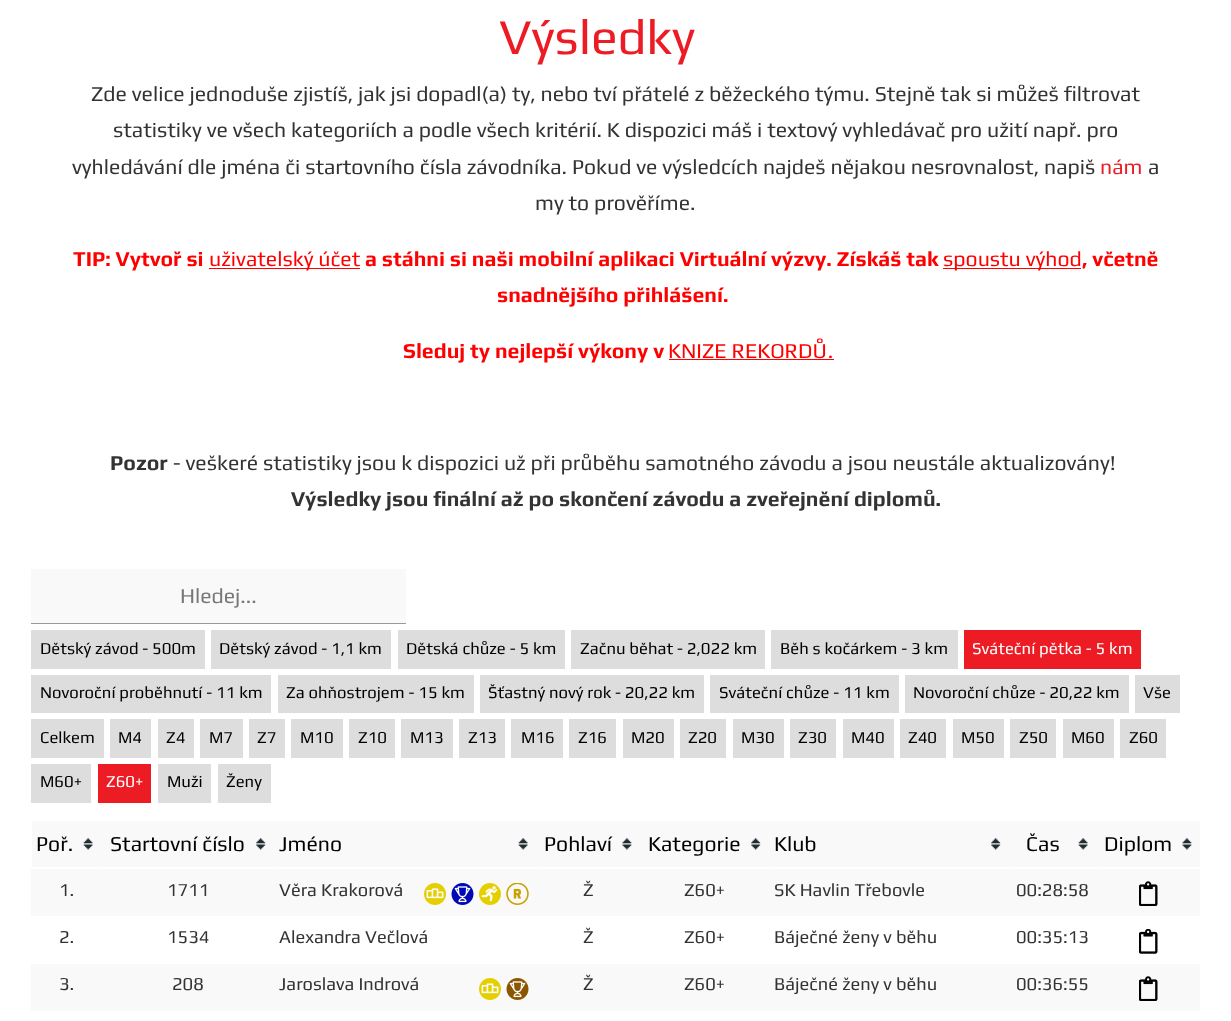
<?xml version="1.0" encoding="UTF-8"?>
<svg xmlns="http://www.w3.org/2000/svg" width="1231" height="1021">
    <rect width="100%" height="100%" fill="#FFFFFF"/>
    <text x="499" y="54" font-family="Play" font-size="50" fill="#ED1C24">Výsledky</text>
    <text x="91" y="101" font-family="Play" font-size="21.25" fill="#333333">Zde velice jednoduše zjistíš, jak jsi dopadl(a) ty, nebo tví přátelé z běžeckého týmu. Stejně tak si můžeš filtrovat</text>
    <text x="113" y="137" font-family="Play" font-size="21.25" fill="#333333">statistiky ve všech kategoriích a podle všech kritérií. K dispozici máš i textový vyhledávač pro užití např. pro</text>
    <text x="72" y="174" font-family="Play" font-size="21.25" fill="#333333">vyhledávání dle jména či startovního čísla závodníka. Pokud ve výsledcích najdeš nějakou nesrovnalost, napiš</text>
    <text x="1100" y="174" font-family="Play" font-size="21.25" fill="#ED1C24">nám</text>
    <text x="1148" y="174" font-family="Play" font-size="21.25" fill="#333333">a</text>
    <text x="535" y="210" font-family="Play" font-size="21.25" fill="#333333">my to prověříme.</text>
    <text x="73" y="266" font-family="Play" font-size="21.25" font-weight="700" fill="#FF0000">TIP: Vytvoř si</text>
    <rect x="209" y="268" width="151" height="1" fill="#FF0000"/>
    <text x="209" y="266" font-family="Play" font-size="21.25" fill="#FF0000">uživatelský účet</text>
    <text x="365" y="266" font-family="Play" font-size="21.25" font-weight="700" fill="#FF0000">a stáhni si naši mobilní aplikaci Virtuální výzvy. Získáš tak</text>
    <rect x="943" y="268" width="138" height="1" fill="#FF0000"/>
    <text x="943" y="266" font-family="Play" font-size="21.25" fill="#FF0000">spoustu výhod</text>
    <text x="1082" y="266" font-family="Play" font-size="21.25" font-weight="700" fill="#FF0000">, včetně</text>
    <text x="497" y="302" font-family="Play" font-size="21.25" font-weight="700" fill="#FF0000">snadnějšího přihlášení.</text>
    <text x="403" y="358" font-family="Play" font-size="21.25" font-weight="700" fill="#FF0000">Sleduj ty nejlepší výkony v</text>
    <rect x="669" y="359" width="165" height="1" fill="#FF0000"/>
    <text x="668" y="358" font-family="Play" font-size="21.25" fill="#FF0000">KNIZE REKORDŮ.</text>
    <text x="110" y="470" font-family="Play" font-size="21.25" font-weight="700" fill="#333333">Pozor</text>
    <text x="173" y="470" font-family="Play" font-size="21.25" fill="#333333">- veškeré statistiky jsou k dispozici už při průběhu samotného závodu a jsou neustále aktualizovány!</text>
    <text x="291" y="506" font-family="Play" font-size="21.25" font-weight="700" fill="#333333">Výsledky jsou finální až po skončení závodu a zveřejnění diplomů.</text>
    <rect x="31" y="569" width="375" height="55" rx="0.5" fill="#F9F9F9"/>
    <rect x="31" y="623" width="375" height="1" fill="#999999"/>
    <text x="180" y="603" font-family="Play" font-size="21.25" fill="#777777">Hledej...</text>
    <rect x="31" y="630" width="174" height="39" fill="#DDDDDD"/>
    <text x="40" y="654" font-family="Play" font-size="16.7" fill="#000000">Dětský závod - 500m</text>
    <rect x="211" y="630" width="180" height="39" fill="#DDDDDD"/>
    <text x="219" y="654" font-family="Play" font-size="16.7" fill="#000000">Dětský závod - 1,1 km</text>
    <rect x="398" y="630" width="167" height="39" fill="#DDDDDD"/>
    <text x="406" y="654" font-family="Play" font-size="16.7" fill="#000000">Dětská chůze - 5 km</text>
    <rect x="571" y="630" width="194" height="39" fill="#DDDDDD"/>
    <text x="580" y="654" font-family="Play" font-size="16.7" fill="#000000">Začnu běhat - 2,022 km</text>
    <rect x="771" y="630" width="187" height="39" fill="#DDDDDD"/>
    <text x="780" y="654" font-family="Play" font-size="16.7" fill="#000000">Běh s kočárkem - 3 km</text>
    <rect x="964" y="630" width="177" height="39" fill="#ED1C24"/>
    <text x="972" y="654" font-family="Play" font-size="16.7" fill="#FFFFFF">Sváteční pětka - 5 km</text>
    <rect x="31" y="675" width="240" height="38" fill="#DDDDDD"/>
    <text x="40" y="698" font-family="Play" font-size="16.7" fill="#000000">Novoroční proběhnutí - 11 km</text>
    <rect x="278" y="675" width="196" height="38" fill="#DDDDDD"/>
    <text x="286" y="698" font-family="Play" font-size="16.7" fill="#000000">Za ohňostrojem - 15 km</text>
    <rect x="480" y="675" width="224" height="38" fill="#DDDDDD"/>
    <text x="488" y="698" font-family="Play" font-size="16.7" fill="#000000">Šťastný nový rok - 20,22 km</text>
    <rect x="710" y="675" width="189" height="38" fill="#DDDDDD"/>
    <text x="719" y="698" font-family="Play" font-size="16.7" fill="#000000">Sváteční chůze - 11 km</text>
    <rect x="905" y="675" width="224" height="38" fill="#DDDDDD"/>
    <text x="913" y="698" font-family="Play" font-size="16.7" fill="#000000">Novoroční chůze - 20,22 km</text>
    <rect x="1135" y="675" width="45" height="38" fill="#DDDDDD"/>
    <text x="1143" y="698" font-family="Play" font-size="16.7" fill="#000000">Vše</text>
    <rect x="31" y="719" width="73" height="39" fill="#DDDDDD"/>
    <text x="40" y="743" font-family="Play" font-size="16.7" fill="#000000">Celkem</text>
    <rect x="110" y="719" width="41" height="39" fill="#DDDDDD"/>
    <text x="118" y="743" font-family="Play" font-size="16.7" fill="#000000">M4</text>
    <rect x="158" y="719" width="36" height="39" fill="#DDDDDD"/>
    <text x="166" y="743" font-family="Play" font-size="16.7" fill="#000000">Z4</text>
    <rect x="200" y="719" width="43" height="39" fill="#DDDDDD"/>
    <text x="209" y="743" font-family="Play" font-size="16.7" fill="#000000">M7</text>
    <rect x="249" y="719" width="36" height="39" fill="#DDDDDD"/>
    <text x="257" y="743" font-family="Play" font-size="16.7" fill="#000000">Z7</text>
    <rect x="291" y="719" width="52" height="39" fill="#DDDDDD"/>
    <text x="300" y="743" font-family="Play" font-size="16.7" fill="#000000">M10</text>
    <rect x="349" y="719" width="46" height="39" fill="#DDDDDD"/>
    <text x="358" y="743" font-family="Play" font-size="16.7" fill="#000000">Z10</text>
    <rect x="401" y="719" width="52" height="39" fill="#DDDDDD"/>
    <text x="410" y="743" font-family="Play" font-size="16.7" fill="#000000">M13</text>
    <rect x="459" y="719" width="46" height="39" fill="#DDDDDD"/>
    <text x="468" y="743" font-family="Play" font-size="16.7" fill="#000000">Z13</text>
    <rect x="511" y="719" width="52" height="39" fill="#DDDDDD"/>
    <text x="521" y="743" font-family="Play" font-size="16.7" fill="#000000">M16</text>
    <rect x="569" y="719" width="47" height="39" fill="#DDDDDD"/>
    <text x="578" y="743" font-family="Play" font-size="16.7" fill="#000000">Z16</text>
    <rect x="623" y="719" width="51" height="39" fill="#DDDDDD"/>
    <text x="631" y="743" font-family="Play" font-size="16.7" fill="#000000">M20</text>
    <rect x="680" y="719" width="46" height="39" fill="#DDDDDD"/>
    <text x="688" y="743" font-family="Play" font-size="16.7" fill="#000000">Z20</text>
    <rect x="733" y="719" width="51" height="39" fill="#DDDDDD"/>
    <text x="741" y="743" font-family="Play" font-size="16.7" fill="#000000">M30</text>
    <rect x="790" y="719" width="46" height="39" fill="#DDDDDD"/>
    <text x="798" y="743" font-family="Play" font-size="16.7" fill="#000000">Z30</text>
    <rect x="843" y="719" width="51" height="39" fill="#DDDDDD"/>
    <text x="851" y="743" font-family="Play" font-size="16.7" fill="#000000">M40</text>
    <rect x="900" y="719" width="46" height="39" fill="#DDDDDD"/>
    <text x="908" y="743" font-family="Play" font-size="16.7" fill="#000000">Z40</text>
    <rect x="953" y="719" width="51" height="39" fill="#DDDDDD"/>
    <text x="961" y="743" font-family="Play" font-size="16.7" fill="#000000">M50</text>
    <rect x="1010" y="719" width="46" height="39" fill="#DDDDDD"/>
    <text x="1019" y="743" font-family="Play" font-size="16.7" fill="#000000">Z50</text>
    <rect x="1063" y="719" width="51" height="39" fill="#DDDDDD"/>
    <text x="1071" y="743" font-family="Play" font-size="16.7" fill="#000000">M60</text>
    <rect x="1120" y="719" width="46" height="39" fill="#DDDDDD"/>
    <text x="1129" y="743" font-family="Play" font-size="16.7" fill="#000000">Z60</text>
    <rect x="31" y="764" width="60" height="39" fill="#DDDDDD"/>
    <text x="40" y="787" font-family="Play" font-size="16.7" fill="#000000">M60+</text>
    <rect x="98" y="764" width="53" height="39" fill="#ED1C24"/>
    <text x="106" y="787" font-family="Play" font-size="16.7" fill="#FFFFFF">Z60+</text>
    <rect x="158" y="764" width="53" height="39" fill="#DDDDDD"/>
    <text x="167" y="787" font-family="Play" font-size="16.7" fill="#000000">Muži</text>
    <rect x="218" y="764" width="53" height="39" fill="#DDDDDD"/>
    <text x="226" y="787" font-family="Play" font-size="16.7" fill="#000000">Ženy</text>
    <image x="32" y="821" width="69" height="46" href="img_01.png"/>
    <text x="36" y="851" font-family="Play" font-size="21.25" fill="#000000">Poř.</text>
    <image x="101" y="821" width="173" height="46" href="img_02.png"/>
    <text x="110" y="851" font-family="Play" font-size="21.25" fill="#000000">Startovní číslo</text>
    <image x="274" y="821" width="262" height="46" href="img_03.png"/>
    <text x="279" y="851" font-family="Play" font-size="21.25" fill="#000000">Jméno</text>
    <image x="536" y="821" width="104" height="46" href="img_04.png"/>
    <text x="544" y="851" font-family="Play" font-size="21.25" fill="#000000">Pohlaví</text>
    <image x="640" y="821" width="129" height="46" href="img_05.png"/>
    <text x="648" y="851" font-family="Play" font-size="21.25" fill="#000000">Kategorie</text>
    <image x="769" y="821" width="240" height="46" href="img_06.png"/>
    <text x="774" y="851" font-family="Play" font-size="21.25" fill="#000000">Klub</text>
    <image x="1009" y="821" width="87" height="46" href="img_07.png"/>
    <text x="1026" y="851" font-family="Play" font-size="21.25" fill="#000000">Čas</text>
    <image x="1096" y="821" width="104" height="46" href="img_08.png"/>
    <text x="1104" y="851" font-family="Play" font-size="21.25" fill="#000000">Diplom</text>
    <rect x="31" y="869" width="1169" height="47" fill="#F9F9F9"/>
    <text x="59" y="896" font-family="Play" font-size="18.25" fill="#333333">1.</text>
    <text x="167" y="896" font-family="Play" font-size="18.25" fill="#333333">1711</text>
    <text x="279" y="896" font-family="Play" font-size="18.25" fill="#333333">Věra Krakorová</text>
    <image x="424" y="883" width="22" height="22" href="img_09.png"/>
    <image x="451" y="883" width="23" height="22" href="img_10.png"/>
    <image x="479" y="883" width="22" height="22" href="img_11.png"/>
    <image x="506" y="883" width="23" height="22" href="img_12.png"/>
    <text x="583" y="896" font-family="Play" font-size="18.25" fill="#333333">Ž</text>
    <text x="684" y="896" font-family="Play" font-size="18.25" fill="#333333">Z60+</text>
    <text x="774" y="896" font-family="Play" font-size="18.25" fill="#333333">SK Havlin Třebovle</text>
    <text x="1016" y="896" font-family="Play" font-size="18.25" fill="#333333">00:28:58</text>
    <image x="1139" y="881" width="19" height="25" href="img_13.png"/>
    <text x="59" y="943" font-family="Play" font-size="18.25" fill="#333333">2.</text>
    <text x="167" y="943" font-family="Play" font-size="18.25" fill="#333333">1534</text>
    <text x="279" y="943" font-family="Play" font-size="18.25" fill="#333333">Alexandra Večlová</text>
    <text x="583" y="943" font-family="Play" font-size="18.25" fill="#333333">Ž</text>
    <text x="684" y="943" font-family="Play" font-size="18.25" fill="#333333">Z60+</text>
    <text x="774" y="943" font-family="Play" font-size="18.25" fill="#333333">Báječné ženy v běhu</text>
    <text x="1016" y="943" font-family="Play" font-size="18.25" fill="#333333">00:35:13</text>
    <image x="1139" y="929" width="19" height="25" href="img_14.png"/>
    <rect x="31" y="964" width="1169" height="47" fill="#F9F9F9"/>
    <text x="59" y="990" font-family="Play" font-size="18.25" fill="#333333">3.</text>
    <text x="172" y="990" font-family="Play" font-size="18.25" fill="#333333">208</text>
    <text x="279" y="990" font-family="Play" font-size="18.25" fill="#333333">Jaroslava Indrová</text>
    <image x="479" y="978" width="22" height="22" href="img_09.png"/>
    <image x="506" y="978" width="23" height="22" href="img_15.png"/>
    <text x="583" y="990" font-family="Play" font-size="18.25" fill="#333333">Ž</text>
    <text x="684" y="990" font-family="Play" font-size="18.25" fill="#333333">Z60+</text>
    <text x="774" y="990" font-family="Play" font-size="18.25" fill="#333333">Báječné ženy v běhu</text>
    <text x="1016" y="990" font-family="Play" font-size="18.25" fill="#333333">00:36:55</text>
    <image x="1139" y="976" width="19" height="25" href="img_13.png"/>
</svg>
